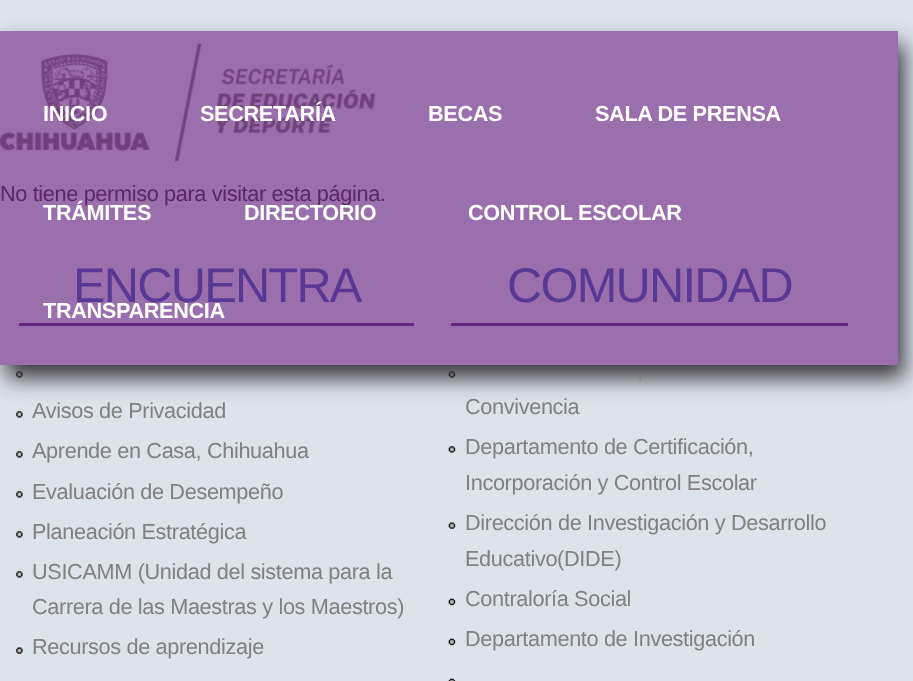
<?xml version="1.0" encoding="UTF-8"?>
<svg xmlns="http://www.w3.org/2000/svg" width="913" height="681">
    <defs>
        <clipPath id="clip1"><path d="M 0 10 H 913 V 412 H 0 Z M 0 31 H 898 V 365 H 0 Z" clip-rule="evenodd"/></clipPath>
        <filter id="blur1" x="-50%" y="-200%" width="200%" height="500%"><feGaussianBlur stdDeviation="11"/></filter>
    </defs>
    <rect width="100%" height="100%" fill="#DDE3EB"/>
    <image x="0" y="43" width="375" height="119" href="img_01.png"/>
    <rect x="19" y="323" width="395" height="3" fill="#5D2C84"/>
    <image x="16" y="371" width="7" height="7" href="img_02.png"/>
    <image x="16" y="411" width="7" height="7" href="img_02.png"/>
    <rect x="451" y="323" width="397" height="3" fill="#5D2C84"/>
    <image x="448" y="371" width="8" height="7" href="img_04.png"/>
    <g clip-path="url(#clip1)">
        <rect x="6" y="44" width="898" height="334" fill="#39343D" filter="url(#blur1)"/>
    </g>
    <text x="0" y="201" font-family="Liberation Sans" font-size="21.7" letter-spacing="-0.35" fill="#333333">No tiene permiso para visitar esta página.</text>
    <text x="73" y="302" font-family="Liberation Sans" font-size="48.75" letter-spacing="-1.75" fill="#335BA7">ENCUENTRA</text>
    <text x="507" y="302" font-family="Liberation Sans" font-size="48.75" letter-spacing="-1.75" fill="#335BA7">COMUNIDAD</text>
    <rect x="0" y="31" width="898" height="334" fill="#702283" fill-opacity="0.6"/>
    <text x="43" y="121" font-family="Liberation Sans" font-size="21.7" font-weight="700" letter-spacing="-0.35" fill="#FFFFFF">INICIO</text>
    <text x="200" y="121" font-family="Liberation Sans" font-size="21.7" font-weight="700" letter-spacing="-0.35" fill="#FFFFFF">SECRETARÍA</text>
    <text x="428" y="121" font-family="Liberation Sans" font-size="21.7" font-weight="700" letter-spacing="-0.35" fill="#FFFFFF">BECAS</text>
    <text x="595" y="121" font-family="Liberation Sans" font-size="21.7" font-weight="700" letter-spacing="-0.35" fill="#FFFFFF">SALA DE PRENSA</text>
    <text x="43" y="220" font-family="Liberation Sans" font-size="21.7" font-weight="700" letter-spacing="-0.35" fill="#FFFFFF">TRÁMITES</text>
    <text x="244" y="220" font-family="Liberation Sans" font-size="21.7" font-weight="700" letter-spacing="-0.35" fill="#FFFFFF">DIRECTORIO</text>
    <text x="468" y="220" font-family="Liberation Sans" font-size="21.7" font-weight="700" letter-spacing="-0.35" fill="#FFFFFF">CONTROL ESCOLAR</text>
    <text x="43" y="318" font-family="Liberation Sans" font-size="21.7" font-weight="700" letter-spacing="-0.35" fill="#FFFFFF">TRANSPARENCIA</text>
    <text x="32" y="418" font-family="Liberation Sans" font-size="21.7" letter-spacing="-0.35" fill="#808080">Avisos de Privacidad</text>
    <image x="16" y="451" width="7" height="7" href="img_02.png"/>
    <text x="32" y="458" font-family="Liberation Sans" font-size="21.7" letter-spacing="-0.35" fill="#808080">Aprende en Casa, Chihuahua</text>
    <image x="16" y="491" width="7" height="7" href="img_02.png"/>
    <text x="32" y="499" font-family="Liberation Sans" font-size="21.7" letter-spacing="-0.35" fill="#808080">Evaluación de Desempeño</text>
    <image x="16" y="531" width="7" height="7" href="img_02.png"/>
    <text x="32" y="539" font-family="Liberation Sans" font-size="21.7" letter-spacing="-0.35" fill="#808080">Planeación Estratégica</text>
    <image x="16" y="571" width="7" height="7" href="img_02.png"/>
    <text font-family="Liberation Sans" font-size="21.7" letter-spacing="-0.35" fill="#808080">
        <tspan x="32" y="579">USICAMM (Unidad del sistema para la</tspan>
        <tspan x="32" y="614">Carrera de las Maestras y los Maestros)</tspan>
    </text>
    <image x="16" y="647" width="7" height="7" href="img_03.png"/>
    <text x="32" y="654" font-family="Liberation Sans" font-size="21.7" letter-spacing="-0.35" fill="#808080">Recursos de aprendizaje</text>
    <text x="637" y="378" font-family="Liberation Sans" font-size="21.7" letter-spacing="-0.35" fill="#808080">,</text>
    <text x="465" y="414" font-family="Liberation Sans" font-size="21.7" letter-spacing="-0.35" fill="#808080">Convivencia</text>
    <image x="448" y="446" width="8" height="7" href="img_04.png"/>
    <text font-family="Liberation Sans" font-size="21.7" letter-spacing="-0.35" fill="#808080">
        <tspan x="465" y="454">Departamento de Certificación,</tspan>
        <tspan x="465" y="490">Incorporación y Control Escolar</tspan>
    </text>
    <image x="448" y="522" width="8" height="7" href="img_05.png"/>
    <text font-family="Liberation Sans" font-size="21.7" letter-spacing="-0.35" fill="#808080">
        <tspan x="465" y="530">Dirección de Investigación y Desarrollo</tspan>
        <tspan x="465" y="566">Educativo(DIDE)</tspan>
    </text>
    <image x="448" y="598" width="8" height="8" href="img_06.png"/>
    <text x="465" y="606" font-family="Liberation Sans" font-size="21.7" letter-spacing="-0.35" fill="#808080">Contraloría Social</text>
    <image x="448" y="638" width="8" height="8" href="img_06.png"/>
    <text x="465" y="646" font-family="Liberation Sans" font-size="21.7" letter-spacing="-0.35" fill="#808080">Departamento de Investigación</text>
    <image x="448" y="678" width="8" height="3" href="img_07.png"/>
</svg>
